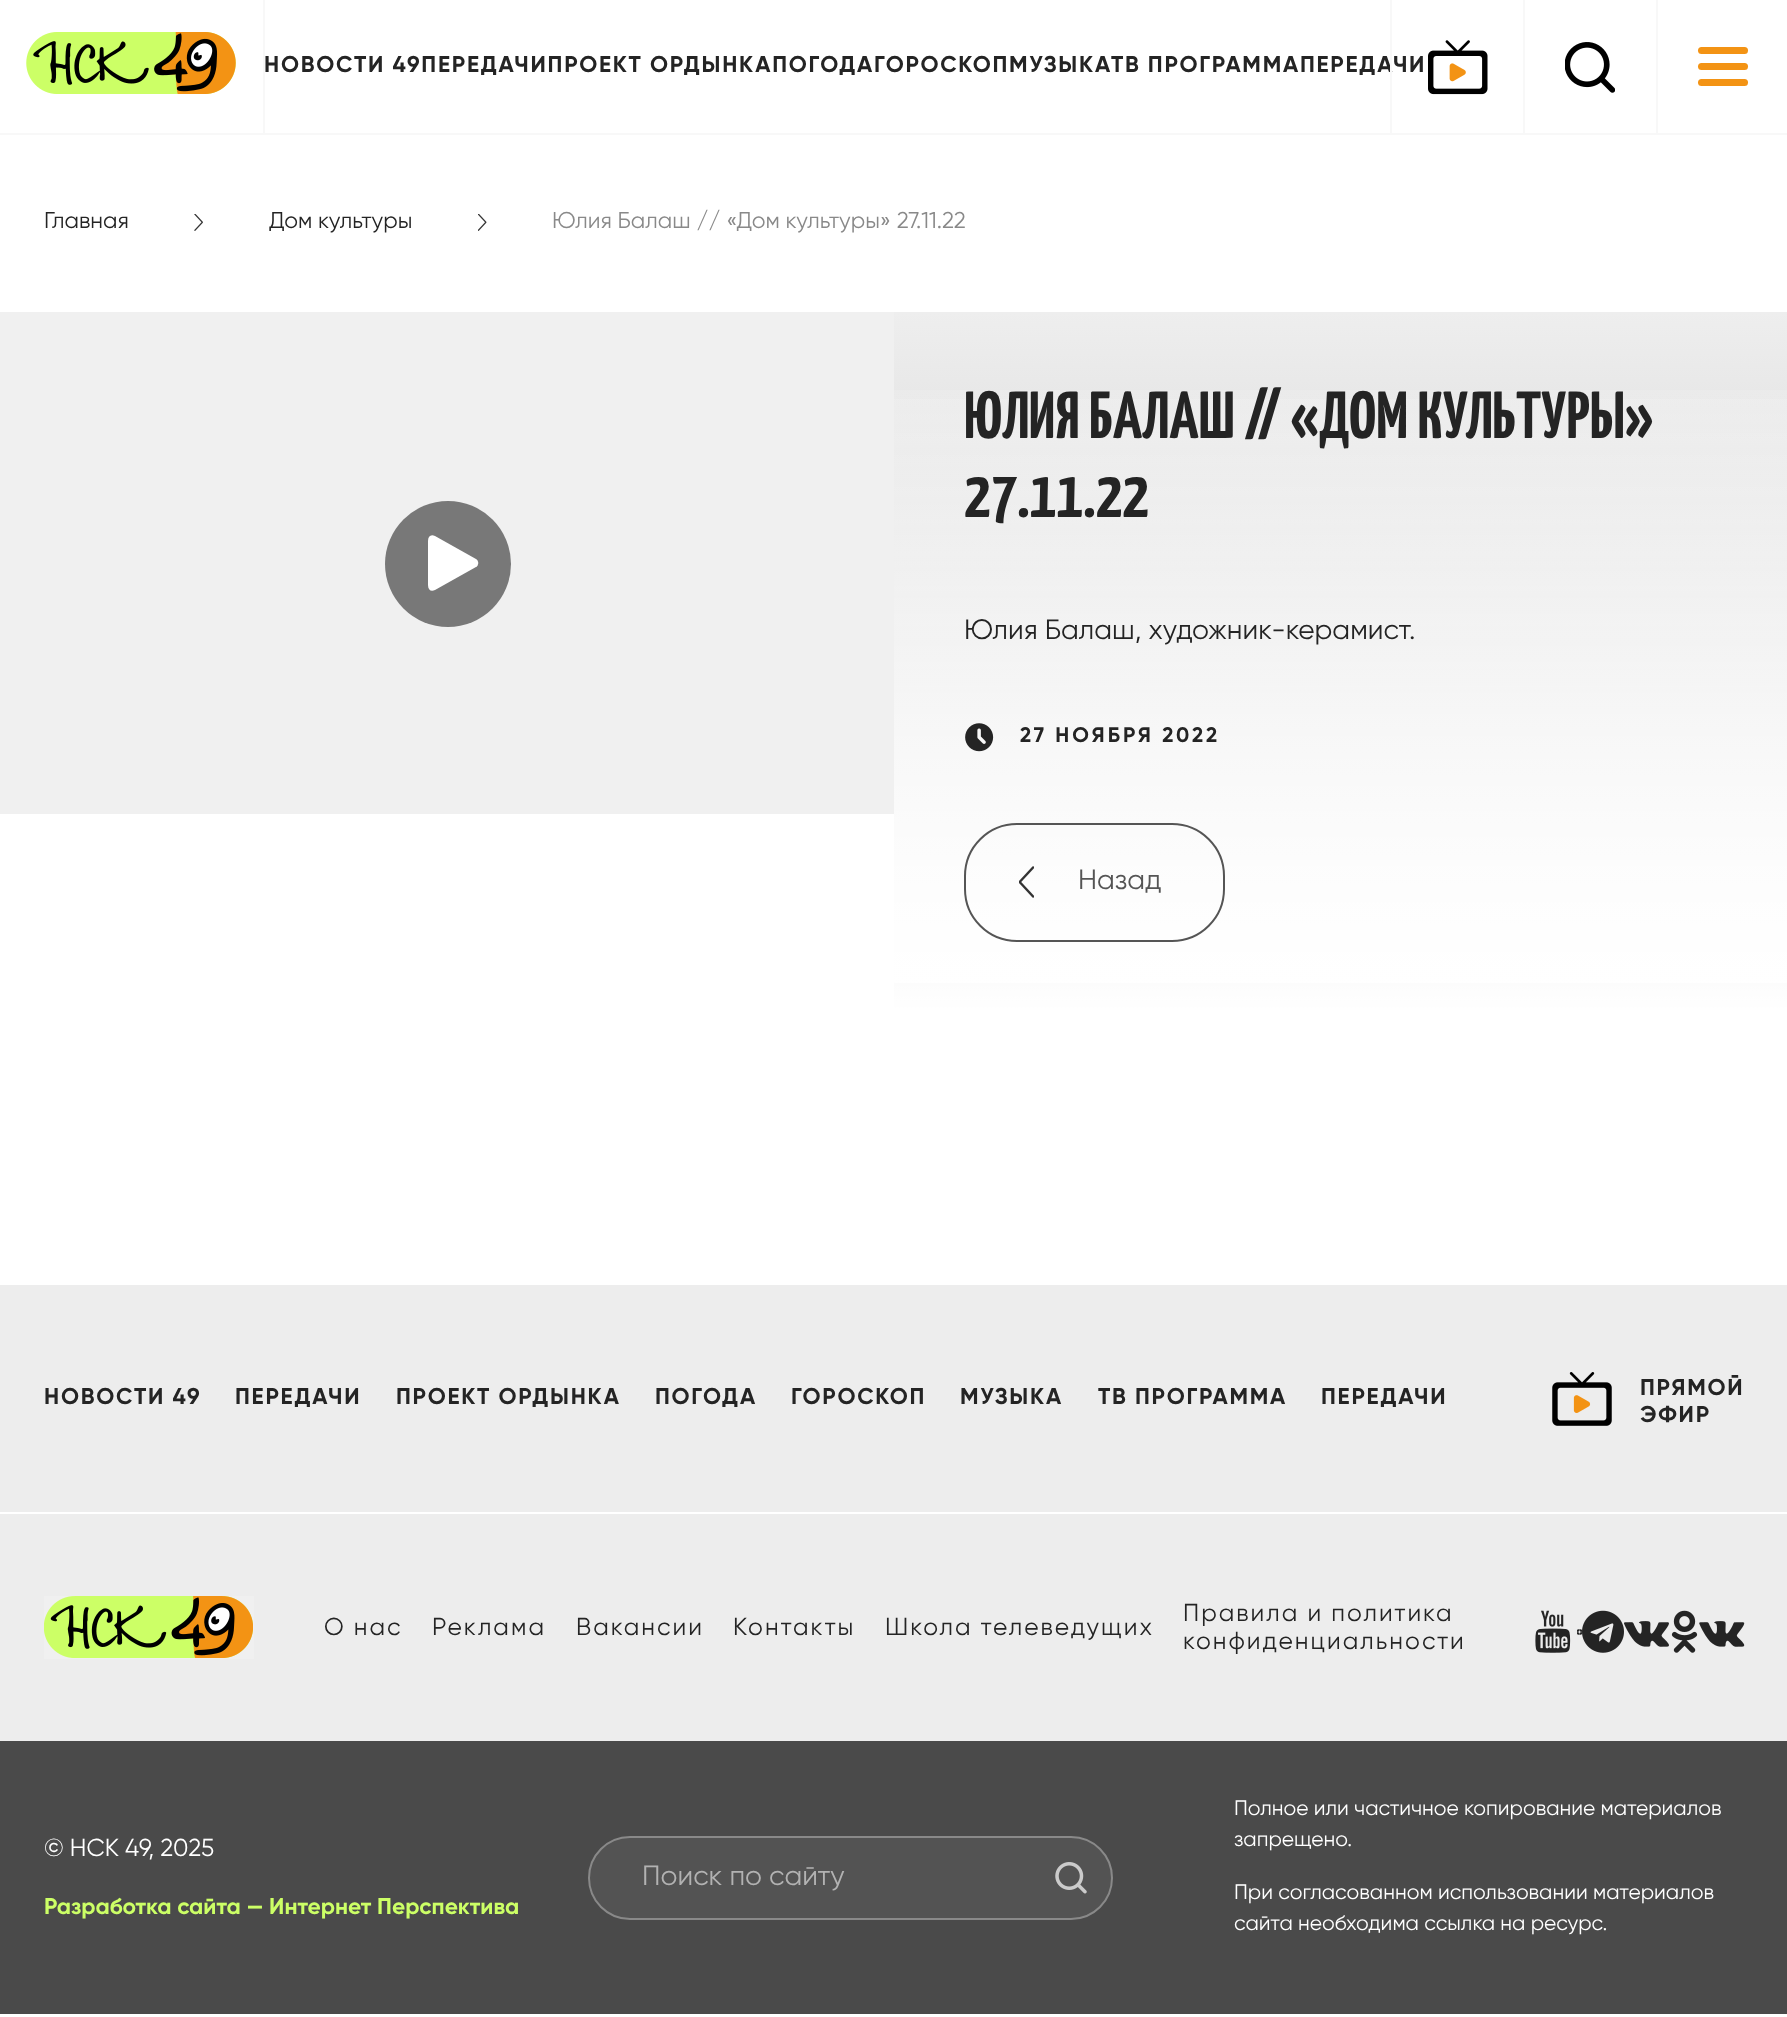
<?xml version="1.0" encoding="UTF-8"?>
<svg xmlns="http://www.w3.org/2000/svg" width="1787" height="2017">
    <defs>
        <linearGradient id="g1" gradientUnits="userSpaceOnUse" x1="1341" y1="1012" x2="1341" y2="312"><stop offset="0" stop-color="#BABABA"/><stop offset="1" stop-color="#EEEEEE"/></linearGradient>
        <linearGradient id="g2" gradientUnits="userSpaceOnUse" x1="1341" y1="1012" x2="1341" y2="312"><stop offset="0" stop-color="#FFFFFF"/><stop offset="1" stop-color="#FFFFFF" stop-opacity="0"/></linearGradient>
    </defs>
    <rect width="100%" height="100%" fill="#FFFFFF"/>
    <rect x="0" y="133" width="1787" height="2" fill="#F8F8F8"/>
    <image x="26" y="32" width="210" height="62" href="img_01.png"/>
    <rect x="263" y="0" width="2" height="133" fill="#F8F8F8"/>
    <text x="264" y="72" font-family="Gilroy" font-size="22.75" font-weight="700" letter-spacing="1.75" fill="#242424">НОВОСТИ 49ПЕРЕДАЧИПРОЕКТ ОРДЫНКАПОГОДАГОРОСКОПМУЗЫКАТВ ПРОГРАММАПЕРЕДАЧИ</text>
    <image x="1428" y="40" width="60" height="55" href="img_02.png"/>
    <rect x="1390" y="0" width="2" height="133" fill="#F8F8F8"/>
    <image x="1565" y="42" width="50" height="51" href="img_03.png"/>
    <rect x="1523" y="0" width="2" height="133" fill="#F8F8F8"/>
    <rect x="1656" y="0" width="2" height="133" fill="#F8F8F8"/>
    <rect x="1698" y="47" width="50" height="7" rx="3.5" fill="#F39314"/>
    <rect x="1698" y="63" width="50" height="7" rx="3.5" fill="#F39314"/>
    <rect x="1698" y="79" width="50" height="7" rx="3.5" fill="#F39314"/>
    <text x="44" y="228" font-family="Gilroy" font-size="22.75" fill="#242424">Главная</text>
    <image x="194" y="214" width="9" height="17" href="img_04.png"/>
    <text x="269" y="228" font-family="Gilroy" font-size="22.75" fill="#242424">Дом культуры</text>
    <image x="478" y="214" width="9" height="17" href="img_05.png"/>
    <text x="552" y="228" font-family="Gilroy" font-size="22.75" fill="#898989">Юлия Балаш // «Дом культуры» 27.11.22</text>
    <rect x="0" y="312" width="894" height="502" fill="#F0F0F0"/>
    <circle cx="448" cy="564" r="63" fill="#787878"/>
    <path d="M 476 559 L 435 536 C 431 534 428 536 428 541 V 585 C 428 590 431 592 435 590 L 476 567 C 479 565 479 561 476 559 Z" fill="#FFFFFF"/>
    <rect x="894" y="312" width="893" height="696" fill="url(#g1)"/>
    <rect x="894" y="390" width="893" height="618" fill="url(#g2)"/>
    <rect x="894" y="399" width="893" height="584" fill="url(#g2)"/>
    <text font-family="Yanone Kaffeesatz" font-size="66.5" font-weight="700" fill="#242424">
        <tspan x="964" y="438">ЮЛИЯ БАЛАШ // «ДОМ КУЛЬТУРЫ»</tspan>
        <tspan x="964" y="517">27.11.22</tspan>
    </text>
    <text x="964" y="639" font-family="Gilroy" font-size="28" fill="#242424">Юлия Балаш, художник-керамист.</text>
    <image x="965" y="723" width="29" height="29" href="img_06.png"/>
    <text x="1020" y="742" font-family="Gilroy" font-size="21" font-weight="700" letter-spacing="3" fill="#242424">27 НОЯБРЯ 2022</text>
    <image x="1019" y="866" width="15" height="32" href="img_07.png"/>
    <rect x="965" y="824" width="259" height="117" rx="52" fill="none" stroke="#555555" stroke-width="2"/>
    <text x="1078" y="889" font-family="Gilroy" font-size="28" fill="#555555">Назад</text>
    <rect x="0" y="1285" width="1787" height="456" fill="#EDEDED"/>
    <text x="44" y="1404" font-family="Gilroy" font-size="22.75" font-weight="700" letter-spacing="1.75" fill="#242424">НОВОСТИ 49</text>
    <text x="235" y="1404" font-family="Gilroy" font-size="22.75" font-weight="700" letter-spacing="1.75" fill="#242424">ПЕРЕДАЧИ</text>
    <text x="396" y="1404" font-family="Gilroy" font-size="22.75" font-weight="700" letter-spacing="1.75" fill="#242424">ПРОЕКТ ОРДЫНКА</text>
    <text x="655" y="1404" font-family="Gilroy" font-size="22.75" font-weight="700" letter-spacing="1.75" fill="#242424">ПОГОДА</text>
    <text x="791" y="1404" font-family="Gilroy" font-size="22.75" font-weight="700" letter-spacing="1.75" fill="#242424">ГОРОСКОП</text>
    <text x="960" y="1404" font-family="Gilroy" font-size="22.75" font-weight="700" letter-spacing="1.75" fill="#242424">МУЗЫКА</text>
    <text x="1098" y="1404" font-family="Gilroy" font-size="22.75" font-weight="700" letter-spacing="1.75" fill="#242424">ТВ ПРОГРАММА</text>
    <text x="1321" y="1404" font-family="Gilroy" font-size="22.75" font-weight="700" letter-spacing="1.75" fill="#242424">ПЕРЕДАЧИ</text>
    <image x="1552" y="1372" width="60" height="54" href="img_08.png"/>
    <text font-family="Gilroy" font-size="22.75" font-weight="700" letter-spacing="1.75" fill="#242424">
        <tspan x="1640" y="1395">ПРЯМОЙ</tspan>
        <tspan x="1640" y="1422">ЭФИР</tspan>
    </text>
    <rect x="0" y="1512" width="1787" height="2" fill="#FFFFFF"/>
    <rect x="44" y="1596" width="210" height="63" fill="#F0F0F0"/>
    <image x="44" y="1596" width="209" height="62" href="img_09.png"/>
    <text x="324" y="1635" font-family="Gilroy" font-size="24.5" letter-spacing="2" fill="#242424">О нас</text>
    <text x="432" y="1635" font-family="Gilroy" font-size="24.5" letter-spacing="2" fill="#242424">Реклама</text>
    <text x="576" y="1635" font-family="Gilroy" font-size="24.5" letter-spacing="2" fill="#242424">Вакансии</text>
    <text x="733" y="1635" font-family="Gilroy" font-size="24.5" letter-spacing="2" fill="#242424">Контакты</text>
    <text x="885" y="1635" font-family="Gilroy" font-size="24.5" letter-spacing="2" fill="#242424">Школа телеведущих</text>
    <text font-family="Gilroy" font-size="24.5" letter-spacing="2" fill="#242424">
        <tspan x="1183" y="1621">Правила и политика</tspan>
        <tspan x="1183" y="1649">конфиденциальности</tspan>
    </text>
    <image x="1535" y="1610" width="36" height="43" href="img_10.png"/>
    <image x="1577" y="1629" width="5" height="6" href="img_11.png"/>
    <image x="1582" y="1610" width="42" height="43" href="img_12.png"/>
    <image x="1624" y="1621" width="45" height="26" href="img_13.png"/>
    <image x="1671" y="1610" width="27" height="43" href="img_14.png"/>
    <image x="1699" y="1621" width="46" height="26" href="img_15.png"/>
    <rect x="0" y="1741" width="1787" height="273" fill="#4A4A4A"/>
    <text x="44" y="1856" font-family="Gilroy" font-size="24.5" fill="#FFFFFF">© НСК 49, 2025</text>
    <text x="44" y="1914" font-family="Gilroy" font-size="22.75" font-weight="700" fill="#CCFF66">Разработка сайта — Интернет Перспектива</text>
    <rect x="589" y="1837" width="523" height="82" rx="41" fill="#535353" stroke="#898989" stroke-width="2"/>
    <text x="642" y="1885" font-family="Gilroy" font-size="28" fill="#B2B2B2">Поиск по сайту</text>
    <image x="1055" y="1862" width="32" height="32" href="img_16.png"/>
    <text font-family="Gilroy" font-size="21" fill="#FFFFFF">
        <tspan x="1234" y="1815">Полное или частичное копирование материалов</tspan>
        <tspan x="1234" y="1846">запрещено.</tspan>
    </text>
    <text font-family="Gilroy" font-size="21" fill="#FFFFFF">
        <tspan x="1234" y="1899">При согласованном использовании материалов</tspan>
        <tspan x="1234" y="1930">сайта необходима ссылка на ресурс.</tspan>
    </text>
</svg>
